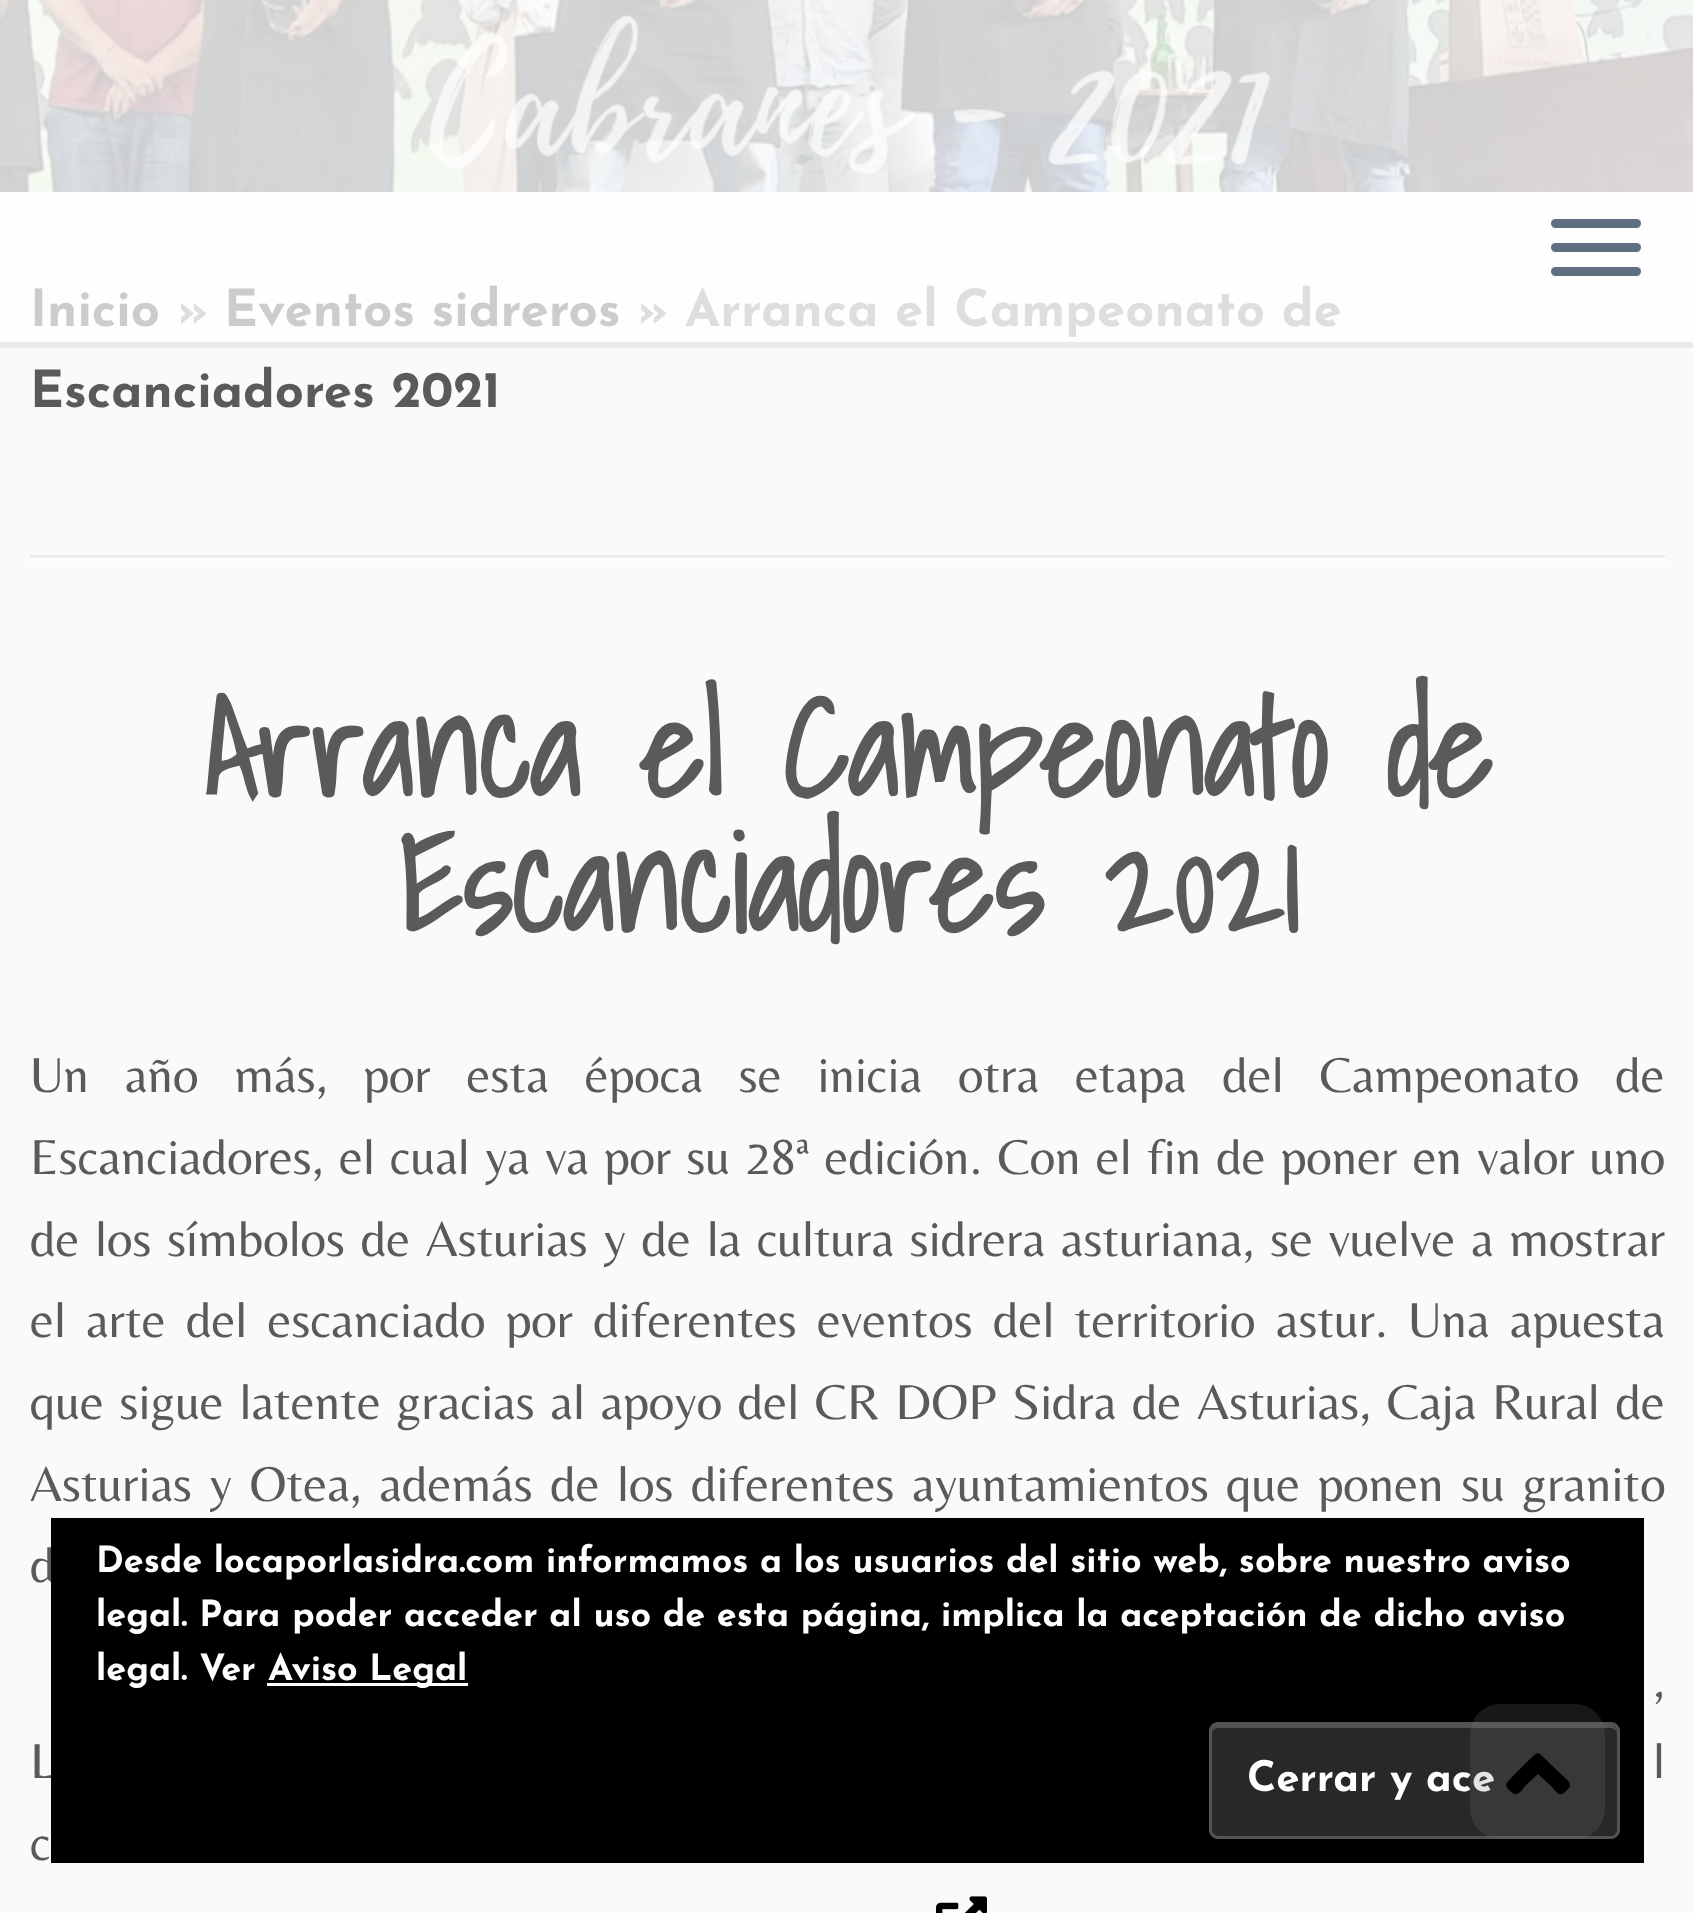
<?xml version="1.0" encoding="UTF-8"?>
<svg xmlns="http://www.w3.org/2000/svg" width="1693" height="1913">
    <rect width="100%" height="100%" fill="#FAFAFA"/>
    <rect x="0" y="192" width="1693" height="150" fill="#FEFEFE"/>
    <image x="0" y="0" width="1693" height="192" href="img_01.png"/>
    <rect x="0" y="342" width="1693" height="6" fill="#E9EAEE"/>
    <rect x="1551" y="219" width="90" height="9" rx="4.5" fill="#5F6F81"/>
    <rect x="1551" y="243" width="90" height="9" rx="4.5" fill="#5F6F81"/>
    <rect x="1551" y="267" width="90" height="9" rx="4.5" fill="#5F6F81"/>
    <text x="30" y="326" font-family="Josefin Sans" font-size="51" font-weight="100" fill="#CCCCCC">Inicio</text>
    <text x="177" y="326" font-family="Josefin Sans" font-size="51" font-weight="100" fill="#DEDEDE">»</text>
    <text x="224" y="326" font-family="Josefin Sans" font-size="51" font-weight="100" fill="#CCCCCC">Eventos sidreros</text>
    <text x="637" y="326" font-family="Josefin Sans" font-size="51" font-weight="100" fill="#DEDEDE">» Arranca el Campeonato de</text>
    <text x="30" y="407" font-family="Josefin Sans" font-size="51" font-weight="100" fill="#5A5A5A">Escanciadores 2021</text>
    <rect x="30" y="555" width="1635" height="3" fill="#EEEEEE"/>
    <rect x="30" y="558" width="1635" height="3" fill="#FFFFFF"/>
    <text x="203" y="798" font-family="Shadows Into Light" font-size="135" font-weight="700" fill="#5A5A5A">Arranca el Campeonato de</text>
    <text x="397" y="933" font-family="Shadows Into Light" font-size="135" font-weight="700" fill="#5A5A5A">Escanciadores 2021</text>
    <text font-family="Belleza" font-size="51" fill="#5A5A5A">
        <tspan x="30" y="1092" word-spacing="23.1">Un año más, por esta época se inicia otra etapa del Campeonato de</tspan>
        <tspan x="30" y="1174" word-spacing="2.4">Escanciadores, el cual ya va por su 28ª edición. Con el fin de poner en valor uno</tspan>
        <tspan x="30" y="1256" word-spacing="2.9">de los símbolos de Asturias y de la cultura sidrera asturiana, se vuelve a mostrar</tspan>
        <tspan x="30" y="1337" word-spacing="7.5">el arte del escanciado por diferentes eventos del territorio astur. Una apuesta</tspan>
        <tspan x="30" y="1419" word-spacing="2.9">que sigue latente gracias al apoyo del CR DOP Sidra de Asturias, Caja Rural de</tspan>
        <tspan x="30" y="1501" word-spacing="4.75">Asturias y Otea, además de los diferentes ayuntamientos que ponen su granito</tspan>
        <tspan x="30" y="1582">d</tspan>
    </text>
    <text x="1653" y="1697" word-spacing="3" font-family="Belleza" font-size="51" fill="#5A5A5A">,</text>
    <text x="30" y="1778" word-spacing="19" font-family="Belleza" font-size="51" fill="#5A5A5A">L</text>
    <text x="1653" y="1778" word-spacing="19" font-family="Belleza" font-size="51" fill="#5A5A5A">l</text>
    <text x="30" y="1860" word-spacing="7" font-family="Belleza" font-size="51" fill="#5A5A5A">c</text>
    <image x="936" y="1896" width="51" height="17" href="img_02.png"/>
    <rect x="51" y="1518" width="1593" height="345" fill="#000000"/>
    <text font-family="Josefin Sans" font-size="36" font-weight="100" fill="#FFFFFF">
        <tspan x="96" y="1572">Desde locaporlasidra.com informamos a los usuarios del sitio web, sobre nuestro aviso</tspan>
        <tspan x="96" y="1626">legal. Para poder acceder al uso de esta página, implica la aceptación de dicho aviso</tspan>
        <tspan x="96" y="1680">legal. Ver</tspan>
    </text>
    <rect x="267" y="1683" width="201" height="3" fill="#FFFFFF"/>
    <text x="268" y="1680" font-family="Josefin Sans" font-size="36" font-weight="100" fill="#FFFFFF">Aviso Legal</text>
    <rect x="1209" y="1722" width="411" height="117" rx="9" fill="#282828"/>
    <path d="M 1218 1728 H 1611 C 1614 1728 1617 1731 1617 1734 C 1617 1730 1616 1725 1611 1725 H 1218 C 1213 1725 1212 1730 1212 1734 C 1212 1731 1215 1728 1218 1728 Z" fill="#535353"/>
    <rect x="1210.5" y="1723.5" width="408" height="114" rx="7.5" fill="none" stroke="#535353" stroke-width="3"/>
    <text x="1247" y="1791" font-family="Josefin Sans" font-size="42" font-weight="100" fill="#FFFFFF">Cerrar y ace</text>
    <rect x="1470" y="1704" width="135" height="135" rx="30" fill="#777777" fill-opacity="0.2"/>
    <path d="M 1541 1755 L 1564 1777 C 1567 1780 1572 1783 1569 1788 L 1565 1792 C 1559 1798 1556 1791 1551 1786 L 1538 1774 L 1525 1786 C 1523 1789 1518 1796 1514 1794 L 1509 1790 C 1503 1784 1508 1782 1512 1777 L 1530 1759 C 1533 1757 1537 1750 1541 1755 Z" fill="#000000"/>
</svg>
